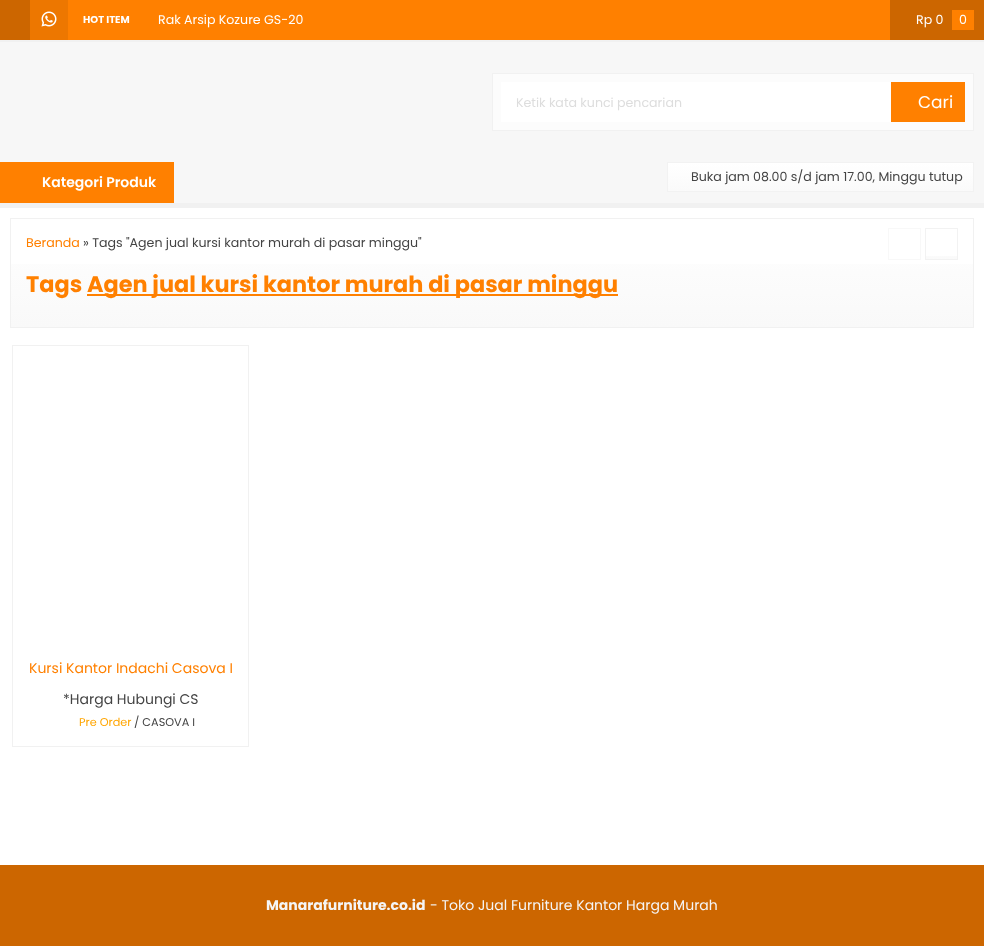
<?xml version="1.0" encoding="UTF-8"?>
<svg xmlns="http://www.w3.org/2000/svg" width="984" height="946">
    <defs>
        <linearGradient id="g1" gradientUnits="userSpaceOnUse" x1="821" y1="191" x2="821" y2="163"><stop offset="0" stop-color="#FAFAFA"/><stop offset="1" stop-color="#FFFFFF"/></linearGradient>
        <linearGradient id="g2" gradientUnits="userSpaceOnUse" x1="492" y1="219" x2="492" y2="327"><stop offset="0" stop-color="#FFFFFF"/><stop offset="1" stop-color="#F9F9F9"/></linearGradient>
        <linearGradient id="g3" gradientUnits="userSpaceOnUse" x1="942" y1="259" x2="942" y2="229"><stop offset="0" stop-color="#FAFAFA"/><stop offset="1" stop-color="#FFFFFF"/></linearGradient>
    </defs>
    <rect width="100%" height="100%" fill="#F1F1F1"/>
    <rect x="68" y="0" width="822" height="40" fill="#FF8000"/>
    <rect x="0" y="0" width="30" height="40" fill="#CC6600"/>
    <rect x="30" y="0" width="38" height="40" fill="#ED7700"/>
    <image x="41" y="11" width="16" height="16" href="img_01.png"/>
    <text x="83" y="23" font-family="Poppins" font-size="10" font-weight="700" fill="#FFFFFF">HOT ITEM</text>
    <text x="158" y="24" font-family="Poppins" font-size="12.6" fill="#FFFFFF">Rak Arsip Kozure GS-20</text>
    <rect x="890" y="0" width="94" height="40" fill="#CC6600"/>
    <text x="916" y="24" font-family="Poppins" font-size="12.6" fill="#FFFFFF">Rp 0</text>
    <rect x="952" y="10" width="22" height="20" fill="#FF8000"/>
    <text x="959" y="24" font-family="Poppins" font-size="12.6" fill="#FFFFFF">0</text>
    <rect x="0" y="42" width="984" height="161" fill="#F7F7F7"/>
    <rect x="492.5" y="73.5" width="481" height="57" fill="#FCFCFC" stroke="#F1F1F1"/>
    <rect x="501" y="82" width="390" height="40" fill="#FFFFFF"/>
    <text x="516" y="107" font-family="Poppins" font-size="12.6" fill="#DDDDDD">Ketik kata kunci pencarian</text>
    <rect x="891" y="82" width="74" height="40" fill="#FF8000"/>
    <text x="918" y="108" font-family="Poppins" font-size="17" fill="#FFFFFF">Cari</text>
    <rect x="0" y="162" width="174" height="41" fill="#FF8000"/>
    <text x="42" y="187" font-family="Poppins" font-size="14" font-weight="600" fill="#FFFFFF">Kategori Produk</text>
    <rect x="668" y="163" width="305" height="28" fill="url(#g1)"/>
    <rect x="667.5" y="162.5" width="306" height="29" fill="none" stroke="#F2F2F2"/>
    <text x="691" y="181" font-family="Poppins" font-size="12.6" fill="#444444">Buka jam 08.00 s/d jam 17.00, Minggu tutup</text>
    <rect x="0" y="208" width="984" height="657" fill="#FFFFFF"/>
    <rect x="11" y="264" width="962" height="63" fill="url(#g2)"/>
    <rect x="10.5" y="218.5" width="963" height="109" fill="none" stroke="#F1F1F1"/>
    <text x="26" y="247" font-family="Poppins" font-size="12.6" fill="#FF8000">Beranda</text>
    <text x="83" y="247" font-family="Poppins" font-size="12.6" fill="#444444">» Tags "Agen jual kursi kantor murah di pasar minggu"</text>
    <rect x="888.5" y="228.5" width="32" height="31" fill="none" stroke="#F8F8F8"/>
    <rect x="926" y="256" width="31" height="3" fill="url(#g3)"/>
    <rect x="925.5" y="228.5" width="32" height="31" fill="none" stroke="#F2F2F2"/>
    <text x="26" y="292" font-family="Poppins" font-size="22.4" font-weight="700" fill="#FF8000">Tags</text>
    <rect x="87" y="294" width="531" height="2" fill="#FF8000"/>
    <text x="87" y="292" font-family="Poppins" font-size="22.4" font-weight="700" fill="#FF8000">Agen jual kursi kantor murah di pasar minggu</text>
    <rect x="12.5" y="345.5" width="236" height="401" fill="none" stroke="#F1F1F1"/>
    <text x="29" y="673" font-family="Poppins" font-size="14" fill="#FF8000">Kursi Kantor Indachi Casova I</text>
    <text x="63" y="704" font-family="Poppins" font-size="14" fill="#444444">*Harga Hubungi CS</text>
    <text x="79" y="726" font-family="Poppins" font-size="11.25" fill="#FFA500">Pre Order</text>
    <text x="134" y="726" font-family="Poppins" font-size="11.25" fill="#444444">/ CASOVA I</text>
    <rect x="0" y="865" width="984" height="81" fill="#CC6600"/>
    <text x="266" y="910" font-family="Poppins" font-size="14" font-weight="700" fill="#F5F5F5">Manarafurniture.co.id</text>
    <text x="430" y="910" font-family="Poppins" font-size="14" fill="#F5F5F5">- Toko Jual Furniture Kantor Harga Murah</text>
</svg>
